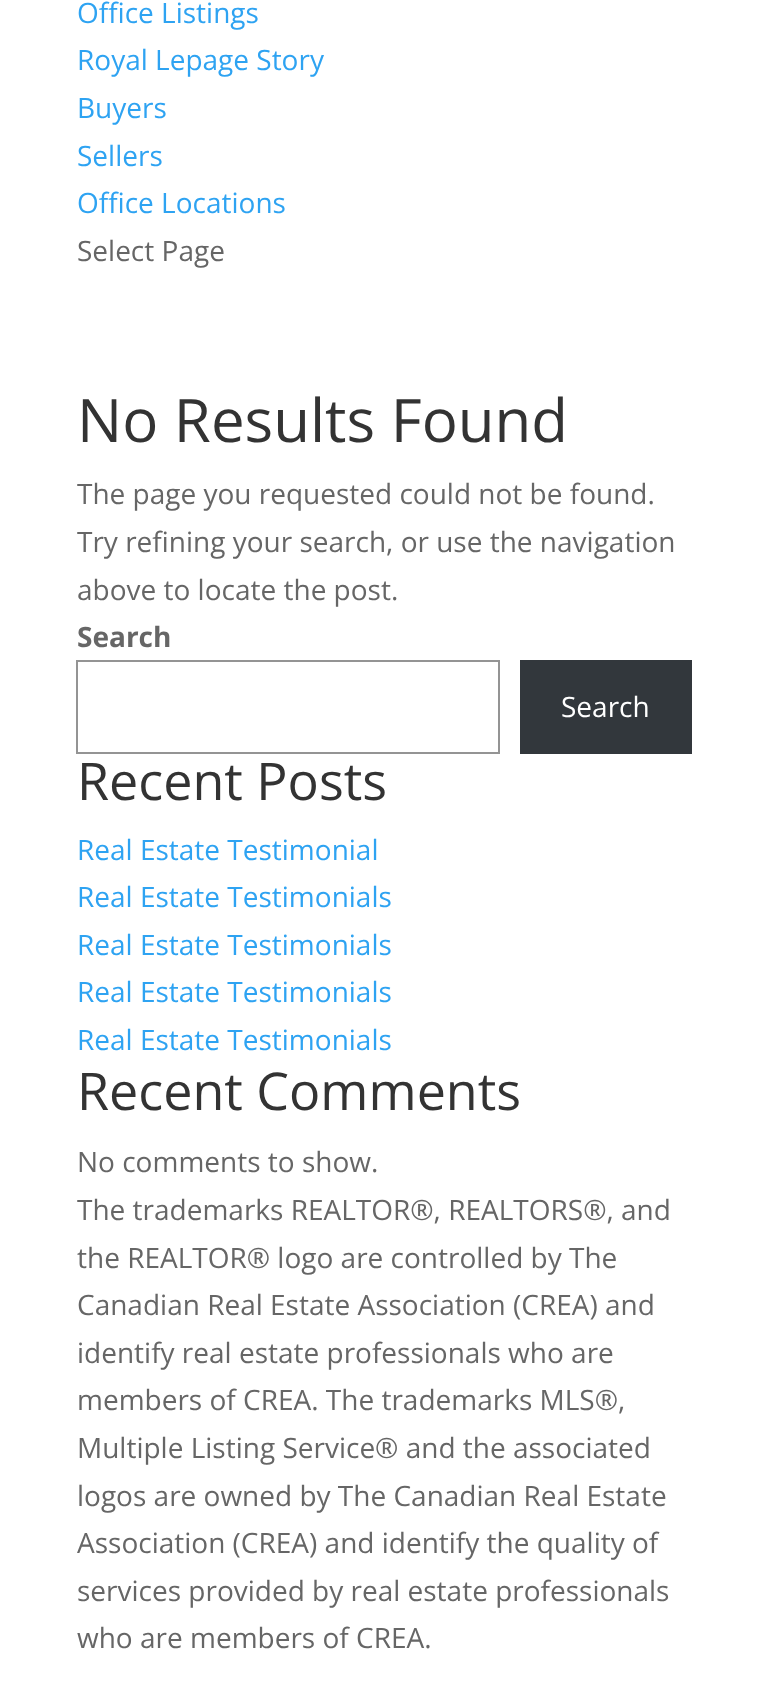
<?xml version="1.0" encoding="UTF-8"?>
<svg xmlns="http://www.w3.org/2000/svg" width="767" height="1686">
    <rect width="100%" height="100%" fill="#FFFFFF"/>
    <text font-family="Open Sans" font-size="28" fill="#2EA3F2">
        <tspan x="77" y="23">Office Listings</tspan>
        <tspan x="77" y="70">Royal Lepage Story</tspan>
        <tspan x="77" y="118">Buyers</tspan>
        <tspan x="77" y="166">Sellers</tspan>
        <tspan x="77" y="213">Office Locations</tspan>
    </text>
    <text x="77" y="261" font-family="Open Sans" font-size="28" fill="#666666">Select Page</text>
    <text x="77" y="442" font-family="Open Sans" font-size="60" fill="#333333">No Results Found</text>
    <text font-family="Open Sans" font-size="28" fill="#666666">
        <tspan x="77" y="504">The page you requested could not be found.</tspan>
        <tspan x="77" y="552">Try refining your search, or use the navigation</tspan>
        <tspan x="77" y="600">above to locate the post.</tspan>
    </text>
    <text x="77" y="647" font-family="Open Sans" font-size="28" font-weight="700" fill="#666666">Search</text>
    <rect x="77" y="661" width="422" height="92" fill="none" stroke="#949494" stroke-width="2"/>
    <rect x="520" y="660" width="172" height="94" fill="#32373C"/>
    <text x="561" y="717" font-family="Open Sans" font-size="28" fill="#FFFFFF">Search</text>
    <text x="77" y="800" font-family="Open Sans" font-size="52" fill="#333333">Recent Posts</text>
    <text font-family="Open Sans" font-size="28" fill="#2EA3F2">
        <tspan x="77" y="860">Real Estate Testimonial</tspan>
        <tspan x="77" y="907">Real Estate Testimonials</tspan>
        <tspan x="77" y="955">Real Estate Testimonials</tspan>
        <tspan x="77" y="1002">Real Estate Testimonials</tspan>
        <tspan x="77" y="1050">Real Estate Testimonials</tspan>
    </text>
    <text x="77" y="1110" font-family="Open Sans" font-size="52" fill="#333333">Recent Comments</text>
    <text font-family="Open Sans" font-size="28" fill="#666666">
        <tspan x="77" y="1172">No comments to show.</tspan>
        <tspan x="77" y="1220">The trademarks REALTOR®, REALTORS®, and</tspan>
        <tspan x="77" y="1268">the REALTOR® logo are controlled by The</tspan>
        <tspan x="77" y="1315">Canadian Real Estate Association (CREA) and</tspan>
        <tspan x="77" y="1363">identify real estate professionals who are</tspan>
        <tspan x="77" y="1410">members of CREA. The trademarks MLS®,</tspan>
        <tspan x="77" y="1458">Multiple Listing Service® and the associated</tspan>
        <tspan x="77" y="1506">logos are owned by The Canadian Real Estate</tspan>
        <tspan x="77" y="1553">Association (CREA) and identify the quality of</tspan>
        <tspan x="77" y="1601">services provided by real estate professionals</tspan>
        <tspan x="77" y="1648">who are members of CREA.</tspan>
    </text>
</svg>
